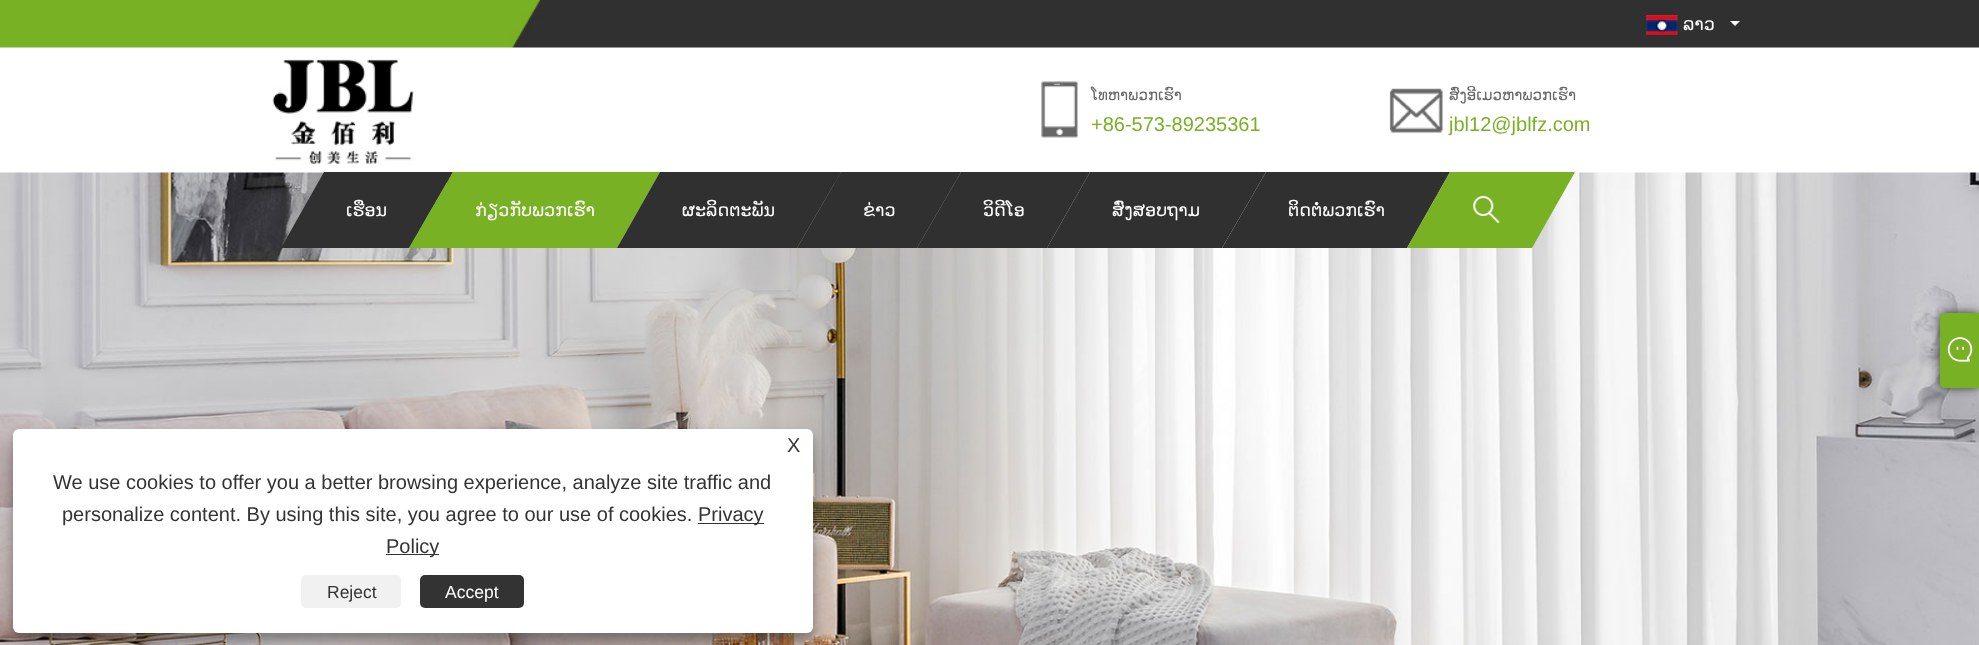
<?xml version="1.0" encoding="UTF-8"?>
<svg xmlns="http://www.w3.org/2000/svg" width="1979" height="645">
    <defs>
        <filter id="blur1" x="-50%" y="-200%" width="200%" height="500%"><feGaussianBlur stdDeviation="5"/></filter>
        <filter id="blur2" x="-50%" y="-200%" width="200%" height="500%"><feGaussianBlur stdDeviation="4"/></filter>
        <filter id="blur3" x="-50%" y="-200%" width="200%" height="500%"><feGaussianBlur stdDeviation="12.5"/></filter>
    </defs>
    <rect width="100%" height="100%" fill="#FFFFFF"/>
    <image x="0" y="0" width="1979" height="48" href="img_01.png"/>
    <image x="1646" y="15" width="32" height="20" href="img_02.png"/>
    <text x="1683" y="30" font-family="DejaVu Sans" font-size="17.5" fill="#FFFFFF">ລາວ</text>
    <path d="M 1730 21 H 1740 L 1735 26 Z" fill="#FFFFFF"/>
    <image x="272" y="59" width="142" height="106" href="img_03.png"/>
    <image x="1041" y="81" width="37" height="57" href="img_04.png"/>
    <text x="1091" y="100" font-family="DejaVu Sans" font-size="15" fill="#666666">ໂທຫາພວກເຮົາ</text>
    <text x="1091" y="131" font-family="Liberation Sans" font-size="20" fill="#78B124">+86-573-89235361</text>
    <image x="1389" y="88" width="54" height="45" href="img_05.png"/>
    <text x="1449" y="100" font-family="DejaVu Sans" font-size="15" fill="#666666">ສົ່ງອີເມວຫາພວກເຮົາ</text>
    <text x="1449" y="131" font-family="Liberation Sans" font-size="20" fill="#78B124">jbl12@jblfz.com</text>
    <image x="0" y="172" width="1979" height="473" href="img_07.png"/>
    <path d="M 324 172 H 453 L 409 248 H 281 Z" fill="#303030"/>
    <text x="346" y="216" font-family="DejaVu Sans" font-size="17.5" fill="#FFFFFF">ເຮືອນ</text>
    <path d="M 453 172 H 660 L 617 248 H 409 Z" fill="#78B124"/>
    <text x="475" y="216" font-family="DejaVu Sans" font-size="17.5" fill="#FFFFFF">ກ່ຽວກັບພວກເຮົາ</text>
    <path d="M 660 172 H 841 L 797 248 H 617 Z" fill="#303030"/>
    <text x="682" y="216" font-family="DejaVu Sans" font-size="17.5" fill="#FFFFFF">ຜະລິດຕະພັນ</text>
    <path d="M 841 172 H 961 L 917 248 H 797 Z" fill="#303030"/>
    <text x="863" y="216" font-family="DejaVu Sans" font-size="17.5" fill="#FFFFFF">ຂ່າວ</text>
    <path d="M 961 172 H 1090 L 1047 248 H 917 Z" fill="#303030"/>
    <text x="983" y="216" font-family="DejaVu Sans" font-size="17.5" fill="#FFFFFF">ວິດີໂອ</text>
    <path d="M 1090 172 H 1266 L 1222 248 H 1047 Z" fill="#303030"/>
    <text x="1112" y="216" font-family="DejaVu Sans" font-size="17.5" fill="#FFFFFF">ສົ່ງສອບຖາມ</text>
    <path d="M 1266 172 H 1450 L 1407 248 H 1222 Z" fill="#303030"/>
    <text x="1288" y="216" font-family="DejaVu Sans" font-size="17.5" fill="#FFFFFF">ຕິດຕໍ່ພວກເຮົາ</text>
    <path d="M 1450 172 H 1575 L 1532 248 H 1407 Z" fill="#78B124"/>
    <image x="1473" y="196" width="27" height="27" href="img_06.png"/>
    <rect x="1940" y="313" width="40" height="75" rx="5" fill="#333333" filter="url(#blur1)"/>
    <path d="M 1945 313 H 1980 V 388 H 1945 C 1942 388 1940 386 1940 383 V 318 C 1940 315 1942 313 1945 313 Z" fill="#78B124"/>
    <image x="1947" y="337" width="26" height="25" href="img_08.png"/>
    <rect x="13" y="436" width="800" height="204" rx="6" fill="#000000" fill-opacity="0.23" filter="url(#blur2)"/>
    <rect x="13" y="441" width="800" height="204" rx="6" fill="#000000" fill-opacity="0.19" filter="url(#blur3)"/>
    <rect x="13" y="429" width="800" height="204" rx="6" fill="#FFFFFF"/>
    <text x="787" y="452" font-family="Liberation Sans" font-size="20" fill="#333333">X</text>
    <text x="53" y="489" font-family="Liberation Sans" font-size="20" fill="#333333">We use cookies to offer you a better browsing experience, analyze site traffic and</text>
    <text x="62" y="521" font-family="Liberation Sans" font-size="20" fill="#333333">personalize content. By using this site, you agree to our use of cookies.</text>
    <rect x="698" y="523" width="66" height="1" fill="#333333"/>
    <text x="698" y="521" font-family="Liberation Sans" font-size="20" fill="#333333">Privacy</text>
    <rect x="386" y="554" width="53" height="1" fill="#333333"/>
    <text x="386" y="553" font-family="Liberation Sans" font-size="20" fill="#333333">Policy</text>
    <rect x="301" y="575" width="100" height="33" rx="5" fill="#F1F1F1"/>
    <text x="327" y="598" font-family="Liberation Sans" font-size="17.5" fill="#333333">Reject</text>
    <rect x="420" y="575" width="104" height="33" rx="5" fill="#333333"/>
    <text x="445" y="598" font-family="Liberation Sans" font-size="17.5" fill="#FFFFFF">Accept</text>
</svg>
